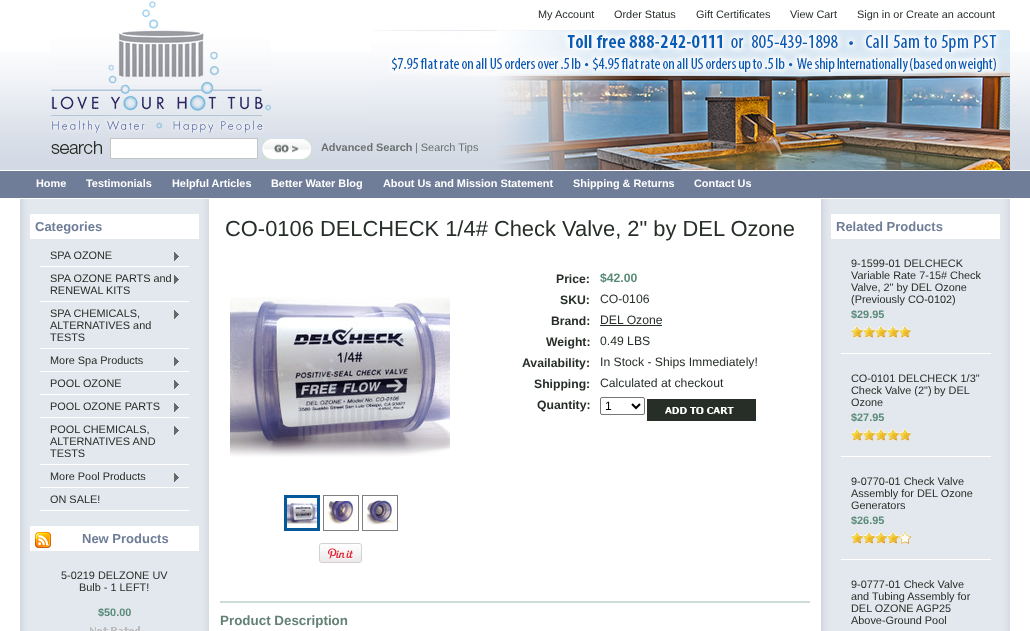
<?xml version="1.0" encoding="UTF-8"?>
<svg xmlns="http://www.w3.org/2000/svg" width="1030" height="631">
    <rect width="100%" height="100%" fill="#FFFFFF"/>
    <image x="0" y="52" width="1030" height="146" href="img_01.png"/>
    <image x="142" y="1" width="17" height="28" href="img_02.png"/>
    <text x="538" y="18" font-family="Liberation Sans" font-size="10.9" fill="#262E27">My Account</text>
    <text x="614" y="18" font-family="Liberation Sans" font-size="10.9" fill="#262E27">Order Status</text>
    <text x="696" y="18" font-family="Liberation Sans" font-size="10.9" fill="#262E27">Gift Certificates</text>
    <text x="790" y="18" font-family="Liberation Sans" font-size="10.9" fill="#262E27">View Cart</text>
    <text x="857" y="18" font-family="Liberation Sans" font-size="10.9" fill="#262E27">Sign in or Create an account</text>
    <image x="371" y="30" width="639" height="140" href="img_03.png"/>
    <image x="50" y="30" width="221" height="103" href="img_04.png"/>
    <image x="51" y="141" width="51" height="13" href="img_05.png"/>
    <rect x="110.5" y="138.5" width="147" height="20" fill="#FFFFFF" stroke="#C3C6C4"/>
    <image x="262" y="139" width="49" height="21" href="img_06.png"/>
    <text x="321" y="151" font-family="Liberation Sans" font-size="10.9" font-weight="700" fill="#69706D">Advanced Search</text>
    <text x="415" y="151" font-family="Liberation Sans" font-size="10.9" fill="#69706D">| Search Tips</text>
    <text x="36" y="187" font-family="Liberation Sans" font-size="10.9" font-weight="700" fill="#FFFFFF">Home</text>
    <text x="86" y="187" font-family="Liberation Sans" font-size="10.9" font-weight="700" fill="#FFFFFF">Testimonials</text>
    <text x="172" y="187" font-family="Liberation Sans" font-size="10.9" font-weight="700" fill="#FFFFFF">Helpful Articles</text>
    <text x="271" y="187" font-family="Liberation Sans" font-size="10.9" font-weight="700" fill="#FFFFFF">Better Water Blog</text>
    <text x="383" y="187" font-family="Liberation Sans" font-size="10.9" font-weight="700" fill="#FFFFFF">About Us and Mission Statement</text>
    <text x="573" y="187" font-family="Liberation Sans" font-size="10.9" font-weight="700" fill="#FFFFFF">Shipping &amp; Returns</text>
    <text x="694" y="187" font-family="Liberation Sans" font-size="10.9" font-weight="700" fill="#FFFFFF">Contact Us</text>
    <image x="20" y="199" width="189" height="432" href="img_07.png"/>
    <rect x="30" y="214" width="169" height="25" fill="#FFFFFF"/>
    <text x="35" y="231" font-family="Liberation Sans" font-size="13" font-weight="700" fill="#6F7D98">Categories</text>
    <rect x="40" y="266" width="149" height="1" fill="#FFFFFF"/>
    <text x="50" y="259" font-family="Liberation Sans" font-size="10.9" fill="#262E27">SPA OZONE</text>
    <image x="174" y="252" width="5" height="9" href="img_08.png"/>
    <rect x="40" y="301" width="149" height="1" fill="#FFFFFF"/>
    <text x="50" y="282" font-family="Liberation Sans" font-size="10.9" fill="#262E27">SPA OZONE PARTS and</text>
    <image x="174" y="275" width="5" height="9" href="img_08.png"/>
    <text x="50" y="294" font-family="Liberation Sans" font-size="10.9" fill="#262E27">RENEWAL KITS</text>
    <rect x="40" y="348" width="149" height="1" fill="#FFFFFF"/>
    <text x="50" y="317" font-family="Liberation Sans" font-size="10.9" fill="#262E27">SPA CHEMICALS,</text>
    <image x="174" y="310" width="5" height="9" href="img_08.png"/>
    <text font-family="Liberation Sans" font-size="10.9" fill="#262E27">
        <tspan x="50" y="329">ALTERNATIVES and</tspan>
        <tspan x="50" y="341">TESTS</tspan>
    </text>
    <rect x="40" y="371" width="149" height="1" fill="#FFFFFF"/>
    <text x="50" y="364" font-family="Liberation Sans" font-size="10.9" fill="#262E27">More Spa Products</text>
    <image x="174" y="357" width="5" height="9" href="img_08.png"/>
    <rect x="40" y="394" width="149" height="1" fill="#FFFFFF"/>
    <text x="50" y="387" font-family="Liberation Sans" font-size="10.9" fill="#262E27">POOL OZONE</text>
    <image x="174" y="380" width="5" height="9" href="img_08.png"/>
    <rect x="40" y="417" width="149" height="1" fill="#FFFFFF"/>
    <text x="50" y="410" font-family="Liberation Sans" font-size="10.9" fill="#262E27">POOL OZONE PARTS</text>
    <image x="174" y="403" width="5" height="9" href="img_08.png"/>
    <rect x="40" y="464" width="149" height="1" fill="#FFFFFF"/>
    <text x="50" y="433" font-family="Liberation Sans" font-size="10.9" fill="#262E27">POOL CHEMICALS,</text>
    <image x="174" y="426" width="5" height="9" href="img_08.png"/>
    <text font-family="Liberation Sans" font-size="10.9" fill="#262E27">
        <tspan x="50" y="445">ALTERNATIVES AND</tspan>
        <tspan x="50" y="457">TESTS</tspan>
    </text>
    <rect x="40" y="487" width="149" height="1" fill="#FFFFFF"/>
    <text x="50" y="480" font-family="Liberation Sans" font-size="10.9" fill="#262E27">More Pool Products</text>
    <image x="174" y="473" width="5" height="9" href="img_08.png"/>
    <rect x="40" y="510" width="149" height="1" fill="#FFFFFF"/>
    <text x="50" y="503" font-family="Liberation Sans" font-size="10.9" fill="#262E27">ON SALE!</text>
    <rect x="30" y="526" width="169" height="25" fill="#FFFFFF"/>
    <image x="35" y="532" width="16" height="16" href="img_09.png"/>
    <text x="82" y="543" font-family="Liberation Sans" font-size="13" font-weight="700" fill="#6F7D98">New Products</text>
    <text x="61" y="579" font-family="Liberation Sans" font-size="10.9" fill="#262E27">5-0219 DELZONE UV</text>
    <text x="79" y="591" font-family="Liberation Sans" font-size="10.9" fill="#262E27">Bulb - 1 LEFT!</text>
    <text x="98" y="616" font-family="Liberation Sans" font-size="10.9" font-weight="700" fill="#598B77">$50.00</text>
    <image x="90" y="626" width="50" height="5" href="img_10.png"/>
    <text x="225" y="236" font-family="Liberation Sans" font-size="21.9" fill="#262E27">CO-0106 DELCHECK 1/4# Check Valve, 2" by DEL Ozone</text>
    <image x="230" y="297" width="220" height="160" href="img_11.png"/>
    <rect x="284.5" y="495.5" width="35" height="35" fill="none" stroke="#075899"/>
    <rect x="286" y="497" width="32" height="32" fill="none" stroke="#075899" stroke-width="2"/>
    <image x="287" y="498" width="30" height="26" href="img_12.png"/>
    <rect x="323.5" y="495.5" width="35" height="35" fill="none" stroke="#808080"/>
    <image x="326" y="501" width="30" height="23" href="img_13.png"/>
    <rect x="362.5" y="495.5" width="35" height="35" fill="none" stroke="#808080"/>
    <image x="365" y="500" width="30" height="25" href="img_14.png"/>
    <image x="319" y="543" width="43" height="20" href="img_15.png"/>
    <text x="556" y="283" font-family="Liberation Sans" font-size="12.2" font-weight="700" fill="#262E27">Price:</text>
    <text x="600" y="282" font-family="Liberation Sans" font-size="12.2" font-weight="700" fill="#598B77">$42.00</text>
    <text x="560" y="304" font-family="Liberation Sans" font-size="12.2" font-weight="700" fill="#262E27">SKU:</text>
    <text x="600" y="303" font-family="Liberation Sans" font-size="12.2" fill="#262E27">CO-0106</text>
    <text x="551" y="325" font-family="Liberation Sans" font-size="12.2" font-weight="700" fill="#262E27">Brand:</text>
    <text x="600" y="324" font-family="Liberation Sans" font-size="12.2" fill="#262E27">DEL Ozone</text>
    <rect x="600" y="325" width="62" height="1" fill="#262E27"/>
    <text x="546" y="346" font-family="Liberation Sans" font-size="12.2" font-weight="700" fill="#262E27">Weight:</text>
    <text x="600" y="345" font-family="Liberation Sans" font-size="12.2" fill="#262E27">0.49 LBS</text>
    <text x="522" y="367" font-family="Liberation Sans" font-size="12.2" font-weight="700" fill="#262E27">Availability:</text>
    <text x="600" y="366" font-family="Liberation Sans" font-size="12.2" fill="#262E27">In Stock - Ships Immediately!</text>
    <text x="534" y="388" font-family="Liberation Sans" font-size="12.2" font-weight="700" fill="#262E27">Shipping:</text>
    <text x="600" y="387" font-family="Liberation Sans" font-size="12.2" fill="#262E27">Calculated at checkout</text>
    <text x="537" y="409" font-family="Liberation Sans" font-size="12.2" font-weight="700" fill="#262E27">Quantity:</text>
    <rect x="600.5" y="397.5" width="44" height="17" rx="1.5" fill="none" stroke="#767676"/>
    <path d="M 632 404 L 636 408 L 640 404" fill="none" stroke="#000000" stroke-width="2"/>
    <text x="605" y="410" font-family="Liberation Sans" font-size="12" fill="#000000">1</text>
    <image x="647" y="399" width="109" height="22" href="img_16.png"/>
    <rect x="220" y="601" width="590" height="2" fill="#CCDCD6"/>
    <text x="220" y="625" font-family="Liberation Sans" font-size="13.4" font-weight="700" fill="#638175">Product Description</text>
    <image x="821" y="199" width="189" height="432" href="img_07.png"/>
    <rect x="831" y="214" width="169" height="25" fill="#FFFFFF"/>
    <text x="836" y="231" font-family="Liberation Sans" font-size="13" font-weight="700" fill="#6F7D98">Related Products</text>
    <rect x="841" y="353" width="150" height="1" fill="#FFFFFF"/>
    <text font-family="Liberation Sans" font-size="10.9" fill="#262E27">
        <tspan x="851" y="267">9-1599-01 DELCHECK</tspan>
        <tspan x="851" y="279">Variable Rate 7-15# Check</tspan>
        <tspan x="851" y="291">Valve, 2" by DEL Ozone</tspan>
        <tspan x="851" y="303">(Previously CO-0102)</tspan>
    </text>
    <text x="851" y="318" font-family="Liberation Sans" font-size="10.9" font-weight="700" fill="#598B77">$29.95</text>
    <image x="851" y="326" width="60" height="12" href="img_17.png"/>
    <rect x="841" y="456" width="150" height="1" fill="#FFFFFF"/>
    <text font-family="Liberation Sans" font-size="10.9" fill="#262E27">
        <tspan x="851" y="382">CO-0101 DELCHECK 1/3"</tspan>
        <tspan x="851" y="394">Check Valve (2")</tspan>
    </text>
    <text x="934" y="394" font-family="Liberation Sans" font-size="10.9" fill="#262E27">by DEL</text>
    <text x="851" y="406" font-family="Liberation Sans" font-size="10.9" fill="#262E27">Ozone</text>
    <text x="851" y="421" font-family="Liberation Sans" font-size="10.9" font-weight="700" fill="#598B77">$27.95</text>
    <image x="851" y="429" width="60" height="12" href="img_17.png"/>
    <rect x="841" y="559" width="150" height="1" fill="#FFFFFF"/>
    <text font-family="Liberation Sans" font-size="10.9" fill="#262E27">
        <tspan x="851" y="485">9-0770-01 Check Valve</tspan>
        <tspan x="851" y="497">Assembly for DEL Ozone</tspan>
        <tspan x="851" y="509">Generators</tspan>
    </text>
    <text x="851" y="524" font-family="Liberation Sans" font-size="10.9" font-weight="700" fill="#598B77">$26.95</text>
    <image x="851" y="532" width="60" height="12" href="img_18.png"/>
    <text font-family="Liberation Sans" font-size="10.9" fill="#262E27">
        <tspan x="851" y="588">9-0777-01 Check Valve</tspan>
        <tspan x="851" y="600">and Tubing Assembly for</tspan>
        <tspan x="851" y="612">DEL OZONE AGP25</tspan>
        <tspan x="851" y="624">Above-Ground Pool</tspan>
    </text>
</svg>
